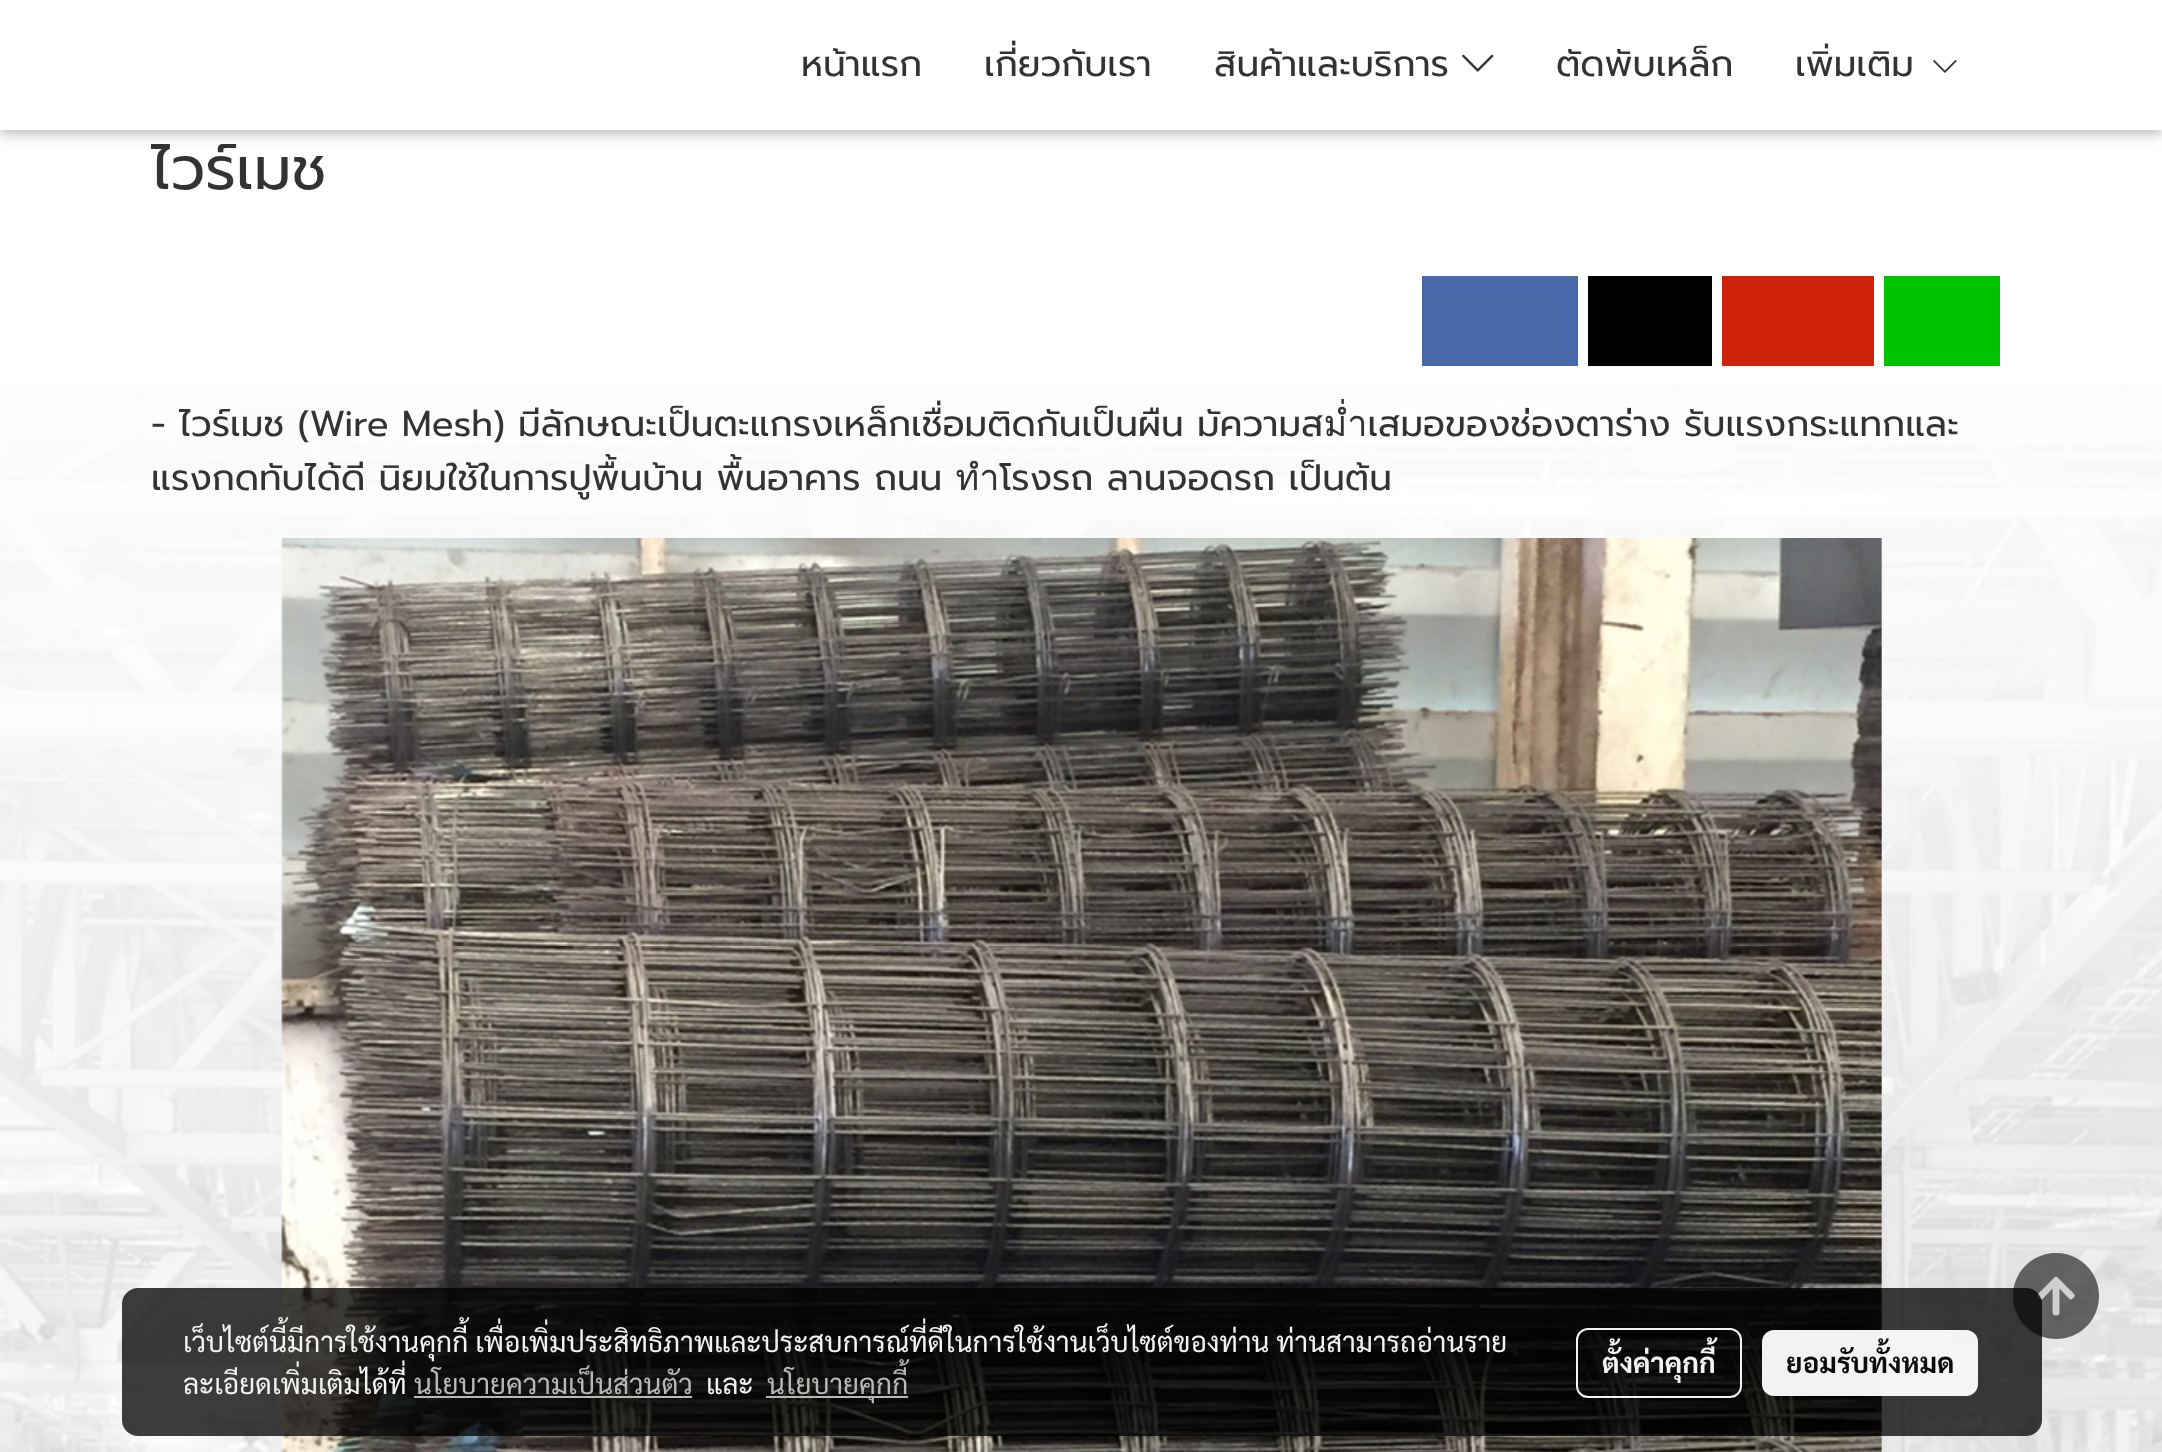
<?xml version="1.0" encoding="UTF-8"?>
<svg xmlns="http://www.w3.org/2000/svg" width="2162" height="1452">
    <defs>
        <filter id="blur1" x="-50%" y="-200%" width="200%" height="500%"><feGaussianBlur stdDeviation="10"/></filter>
        <filter id="blur2" x="-50%" y="-200%" width="200%" height="500%"><feGaussianBlur stdDeviation="5"/></filter>
    </defs>
    <rect width="100%" height="100%" fill="#FFFFFF"/>
    <image x="0" y="385" width="2162" height="1067" href="img_01.png"/>
    <rect x="0" y="4" width="2162" height="130" fill="#000000" fill-opacity="0.12" filter="url(#blur1)"/>
    <rect x="0" y="4" width="2162" height="130" fill="#000000" fill-opacity="0.16" filter="url(#blur2)"/>
    <rect x="0" y="0" width="2162" height="130" fill="#FFFFFF"/>
    <text x="801" y="76" font-family="Prompt" font-size="36" fill="#333333">หน้าแรก</text>
    <text x="984" y="76" font-family="Prompt" font-size="36" fill="#333333">เกี่ยวกับเรา</text>
    <text x="1214" y="76" font-family="Prompt" font-size="36" fill="#333333">สินค้าและบริการ</text>
    <image x="1462" y="54" width="32" height="18" href="img_02.png"/>
    <text x="1556" y="76" font-family="Prompt" font-size="36" fill="#333333">ตัดพับเหล็ก</text>
    <text x="1795" y="76" font-family="Prompt" font-size="36" fill="#333333">เพิ่มเติม</text>
    <image x="1933" y="60" width="24" height="13" href="img_03.png"/>
    <text x="151" y="189" font-family="Prompt" font-size="60" fill="#333333">ไวร์เมช</text>
    <rect x="1422" y="276" width="156" height="90" fill="#4769A9"/>
    <rect x="1588" y="276" width="124" height="90" fill="#000000"/>
    <rect x="1722" y="276" width="152" height="90" fill="#CE220A"/>
    <rect x="1884" y="276" width="116" height="90" fill="#00C300"/>
    <text font-family="Prompt" font-size="36" fill="#333333">
        <tspan x="151" y="436">- ไวร์เมช (Wire Mesh) มีลักษณะเป็นตะแกรงเหล็กเชื่อมติดกันเป็นผืน มัความสม่ำเสมอของช่องตาร่าง รับแรงกระแทกและ</tspan>
        <tspan x="151" y="490">แรงกดทับได้ดี นิยมใช้ในการปูพื้นบ้าน พื้นอาคาร ถนน ทำโรงรถ ลานจอดรถ เป็นต้น</tspan>
    </text>
    <image x="281" y="538" width="1601" height="914" href="img_04.png"/>
    <path d="M 2056 1253 C 2032 1253 2013 1272 2013 1296 C 2013 1320 2032 1339 2056 1339 C 2080 1339 2099 1320 2099 1296 C 2099 1272 2080 1253 2056 1253 Z" fill="#2B2A2A" fill-opacity="0.7"/>
    <image x="2037" y="1276" width="38" height="40" href="img_05.png"/>
    <rect x="122" y="1288" width="1920" height="148" rx="16" fill="#000000" fill-opacity="0.76"/>
    <text font-family="Sarabun" font-size="28" fill="#F3F3F3">
        <tspan x="183" y="1352">เว็บไซต์นี้มีการใช้งานคุกกี้ เพื่อเพิ่มประสิทธิภาพและประสบการณ์ที่ดีในการใช้งานเว็บไซต์ของท่าน ท่านสามารถอ่านราย</tspan>
        <tspan x="183" y="1394">ละเอียดเพิ่มเติมได้ที่</tspan>
    </text>
    <text x="414" y="1394" font-family="Sarabun" font-size="28" fill="#B9B9B9">นโยบายความเป็นส่วนตัว</text>
    <rect x="414" y="1396" width="278" height="2" fill="#C2C2C2" fill-opacity="0.95"/>
    <text x="706" y="1394" font-family="Sarabun" font-size="28" fill="#F3F3F3">และ</text>
    <rect x="766" y="1396" width="142" height="2" fill="#C2C2C2" fill-opacity="0.95"/>
    <text x="767" y="1394" font-family="Sarabun" font-size="28" fill="#B9B9B9">นโยบายคุกกี้</text>
    <rect x="1577" y="1329" width="164" height="68" rx="11" fill="none" stroke="#FFFFFF" stroke-opacity="0.95" stroke-width="2"/>
    <text x="1602" y="1373" font-family="Sarabun" font-size="28" font-weight="700" fill="#F3F3F3">ตั้งค่าคุกกี้</text>
    <rect x="1762" y="1330" width="216" height="66" rx="12" fill="#FFFFFF" fill-opacity="0.95"/>
    <text x="1786" y="1373" font-family="Sarabun" font-size="28" font-weight="700" fill="#0C0C0C">ยอมรับทั้งหมด</text>
</svg>
